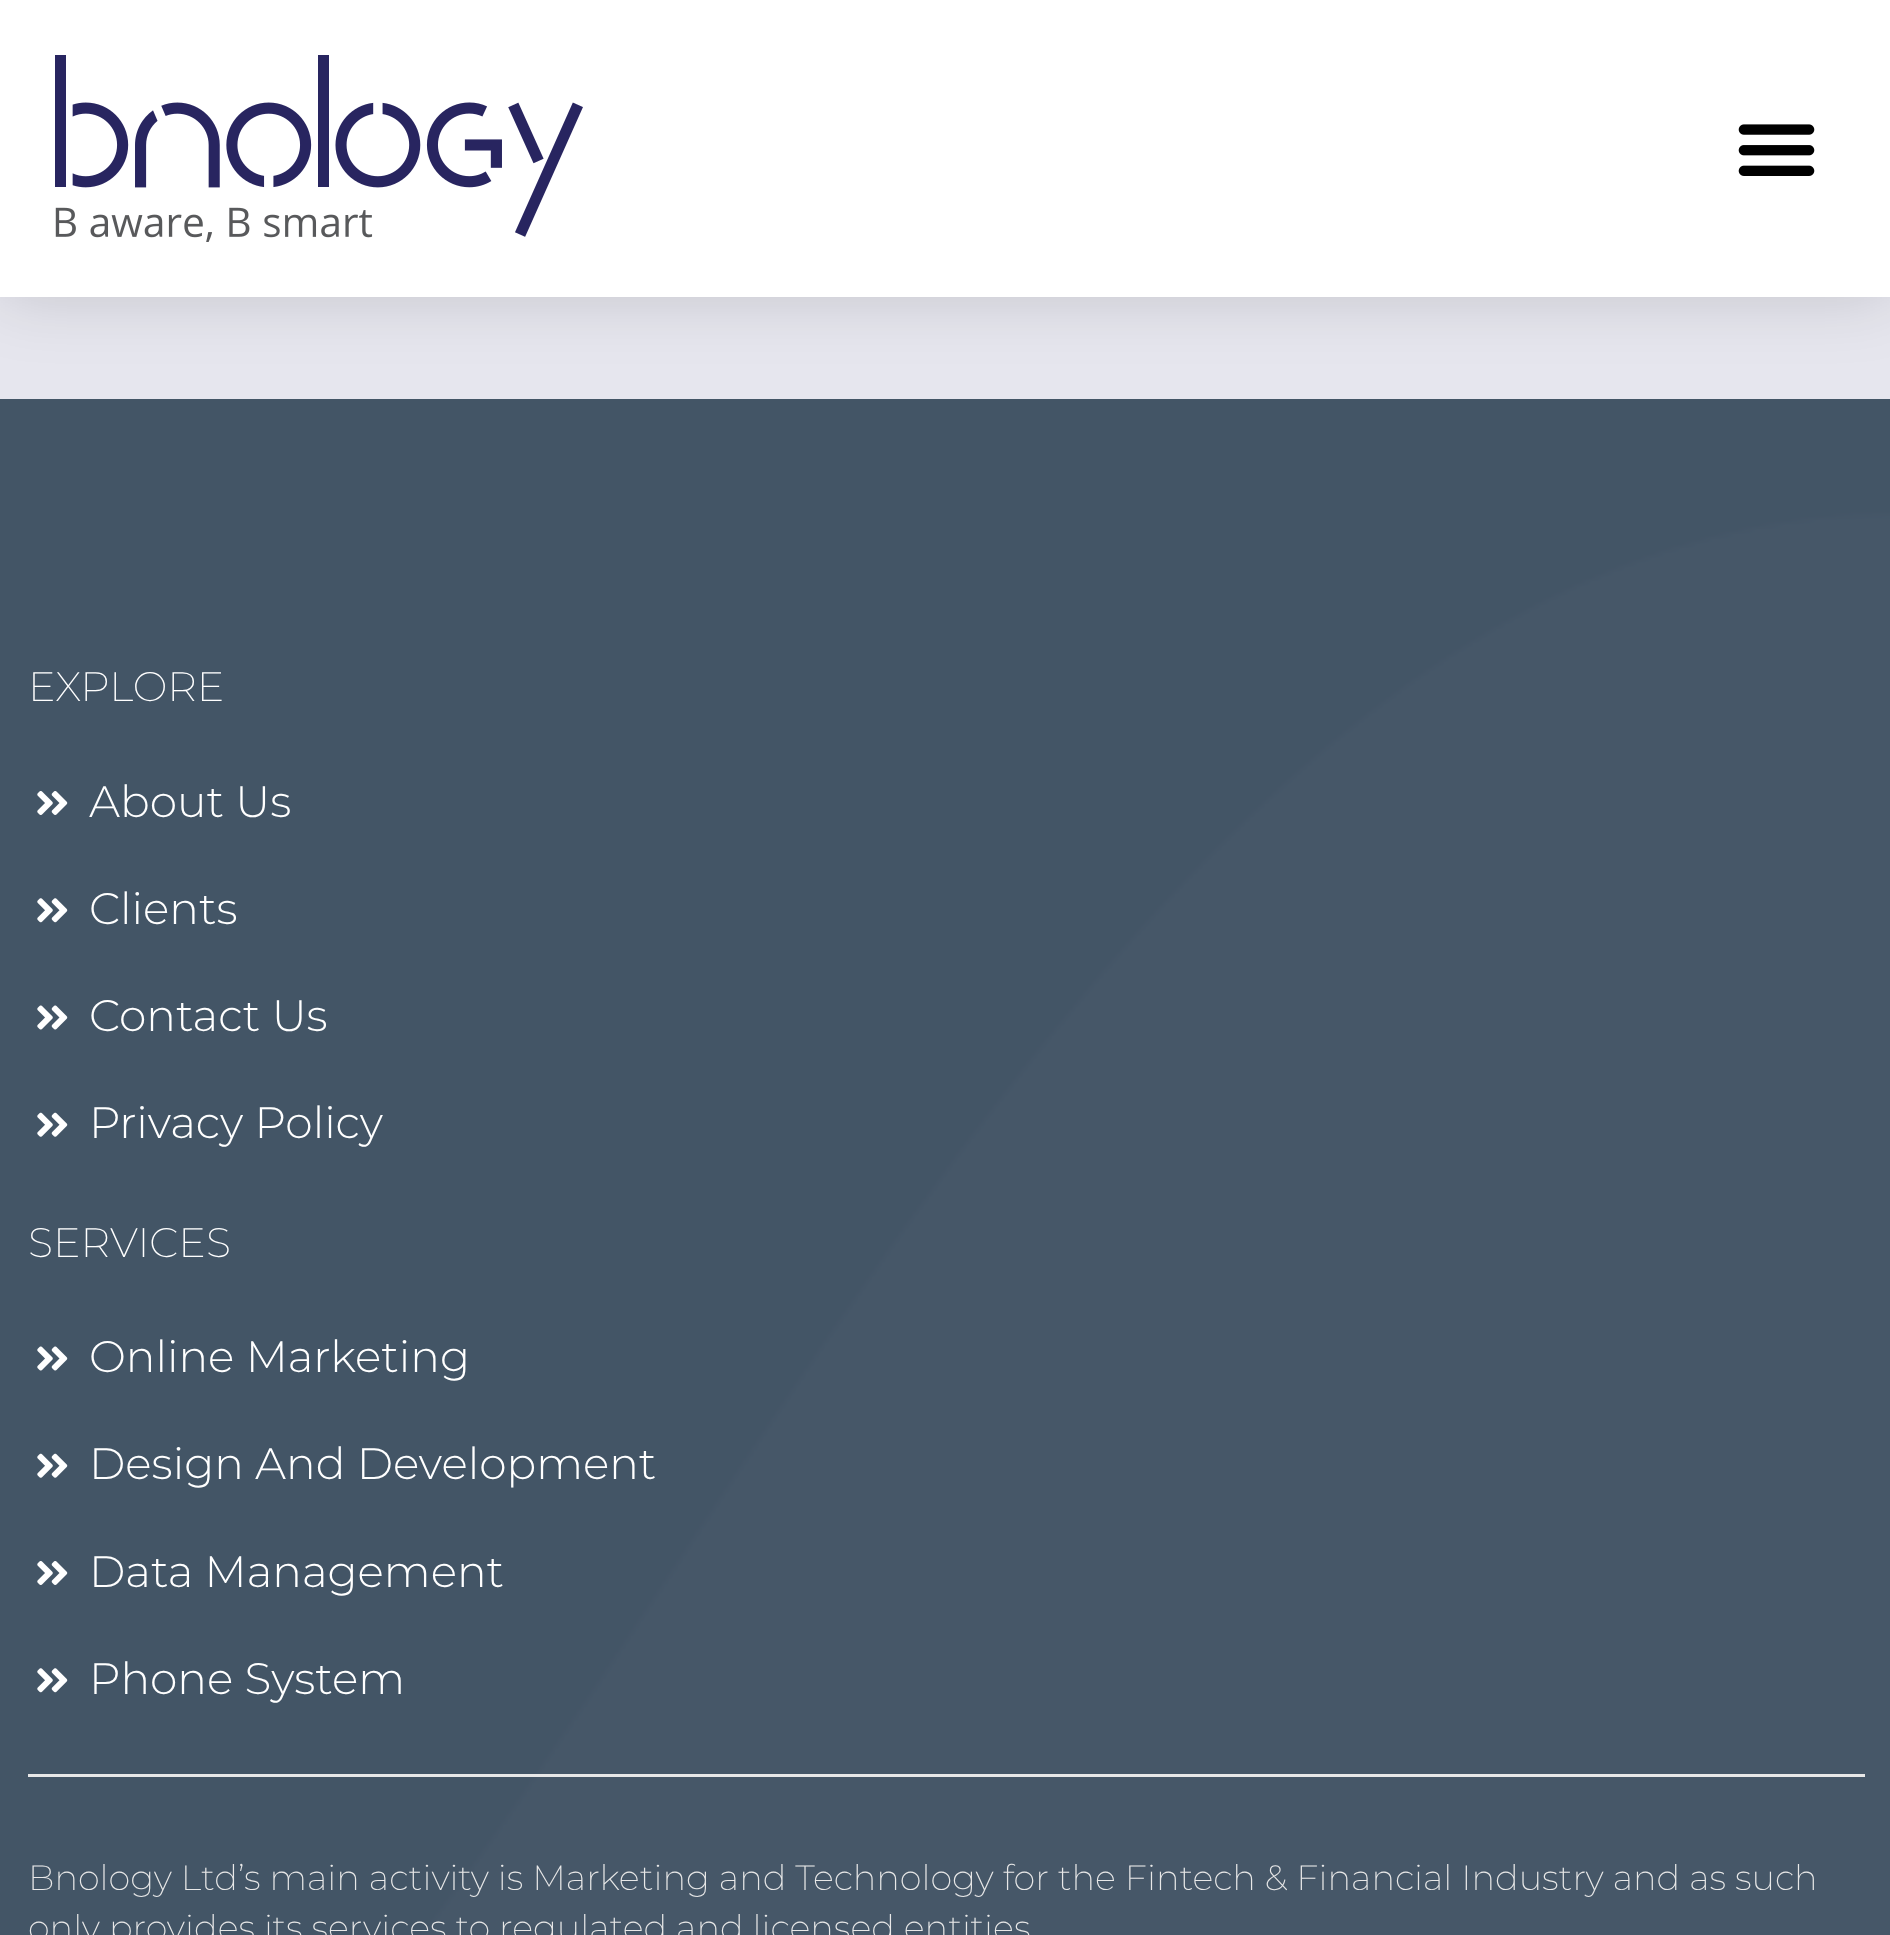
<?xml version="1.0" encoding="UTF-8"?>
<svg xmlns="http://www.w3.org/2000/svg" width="1890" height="1935">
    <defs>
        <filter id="blur1" x="-50%" y="-200%" width="200%" height="500%"><feGaussianBlur stdDeviation="33"/></filter>
    </defs>
    <rect width="100%" height="100%" fill="#E6E6EE"/>
    <rect x="0" y="0" width="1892" height="297" fill="#000000" fill-opacity="0.15" filter="url(#blur1)"/>
    <rect x="0" y="0" width="1890" height="297" fill="#FFFFFF"/>
    <image x="55" y="55" width="528" height="187" href="img_01.png"/>
    <image x="1738" y="124" width="77" height="52" href="img_02.png"/>
    <rect x="0" y="399" width="1890" height="1536" fill="#3D4E60"/>
    <image x="0" y="399" width="1890" height="1536" href="img_03.png"/>
    <text x="28" y="701" font-family="Montserrat" font-size="41.25" font-weight="200" fill="#FFFFFF">EXPLORE</text>
    <image x="37" y="791" width="31" height="24" href="img_04.png"/>
    <text x="89" y="817" font-family="Montserrat" font-size="44" font-weight="300" fill="#FFFFFF">About Us</text>
    <image x="37" y="898" width="31" height="25" href="img_05.png"/>
    <text x="89" y="924" font-family="Montserrat" font-size="44" font-weight="300" fill="#FFFFFF">Clients</text>
    <image x="37" y="1005" width="31" height="25" href="img_06.png"/>
    <text x="89" y="1031" font-family="Montserrat" font-size="44" font-weight="300" fill="#FFFFFF">Contact Us</text>
    <image x="37" y="1112" width="31" height="25" href="img_07.png"/>
    <text x="89" y="1138" font-family="Montserrat" font-size="44" font-weight="300" fill="#FFFFFF">Privacy Policy</text>
    <text x="28" y="1257" font-family="Montserrat" font-size="41.25" font-weight="200" fill="#FFFFFF">SERVICES</text>
    <image x="37" y="1346" width="31" height="25" href="img_06.png"/>
    <text x="89" y="1372" font-family="Montserrat" font-size="44" font-weight="300" fill="#FFFFFF">Online Marketing</text>
    <image x="37" y="1453" width="31" height="25" href="img_07.png"/>
    <text x="89" y="1479" font-family="Montserrat" font-size="44" font-weight="300" fill="#FFFFFF">Design And Development</text>
    <image x="37" y="1561" width="31" height="24" href="img_04.png"/>
    <text x="89" y="1587" font-family="Montserrat" font-size="44" font-weight="300" fill="#FFFFFF">Data Management</text>
    <image x="37" y="1668" width="31" height="25" href="img_05.png"/>
    <text x="89" y="1694" font-family="Montserrat" font-size="44" font-weight="300" fill="#FFFFFF">Phone System</text>
    <rect x="28" y="1774" width="1837" height="3" fill="#E8E8E8"/>
    <text font-family="Montserrat" font-size="35.2" font-weight="200" fill="#E8E8E8">
        <tspan x="28" y="1890">Bnology Ltd’s main activity is Marketing and Technology for the Fintech &amp; Financial Industry and as such</tspan>
        <tspan x="28" y="1940">only provides its services to regulated and licensed entities</tspan>
    </text>
</svg>
